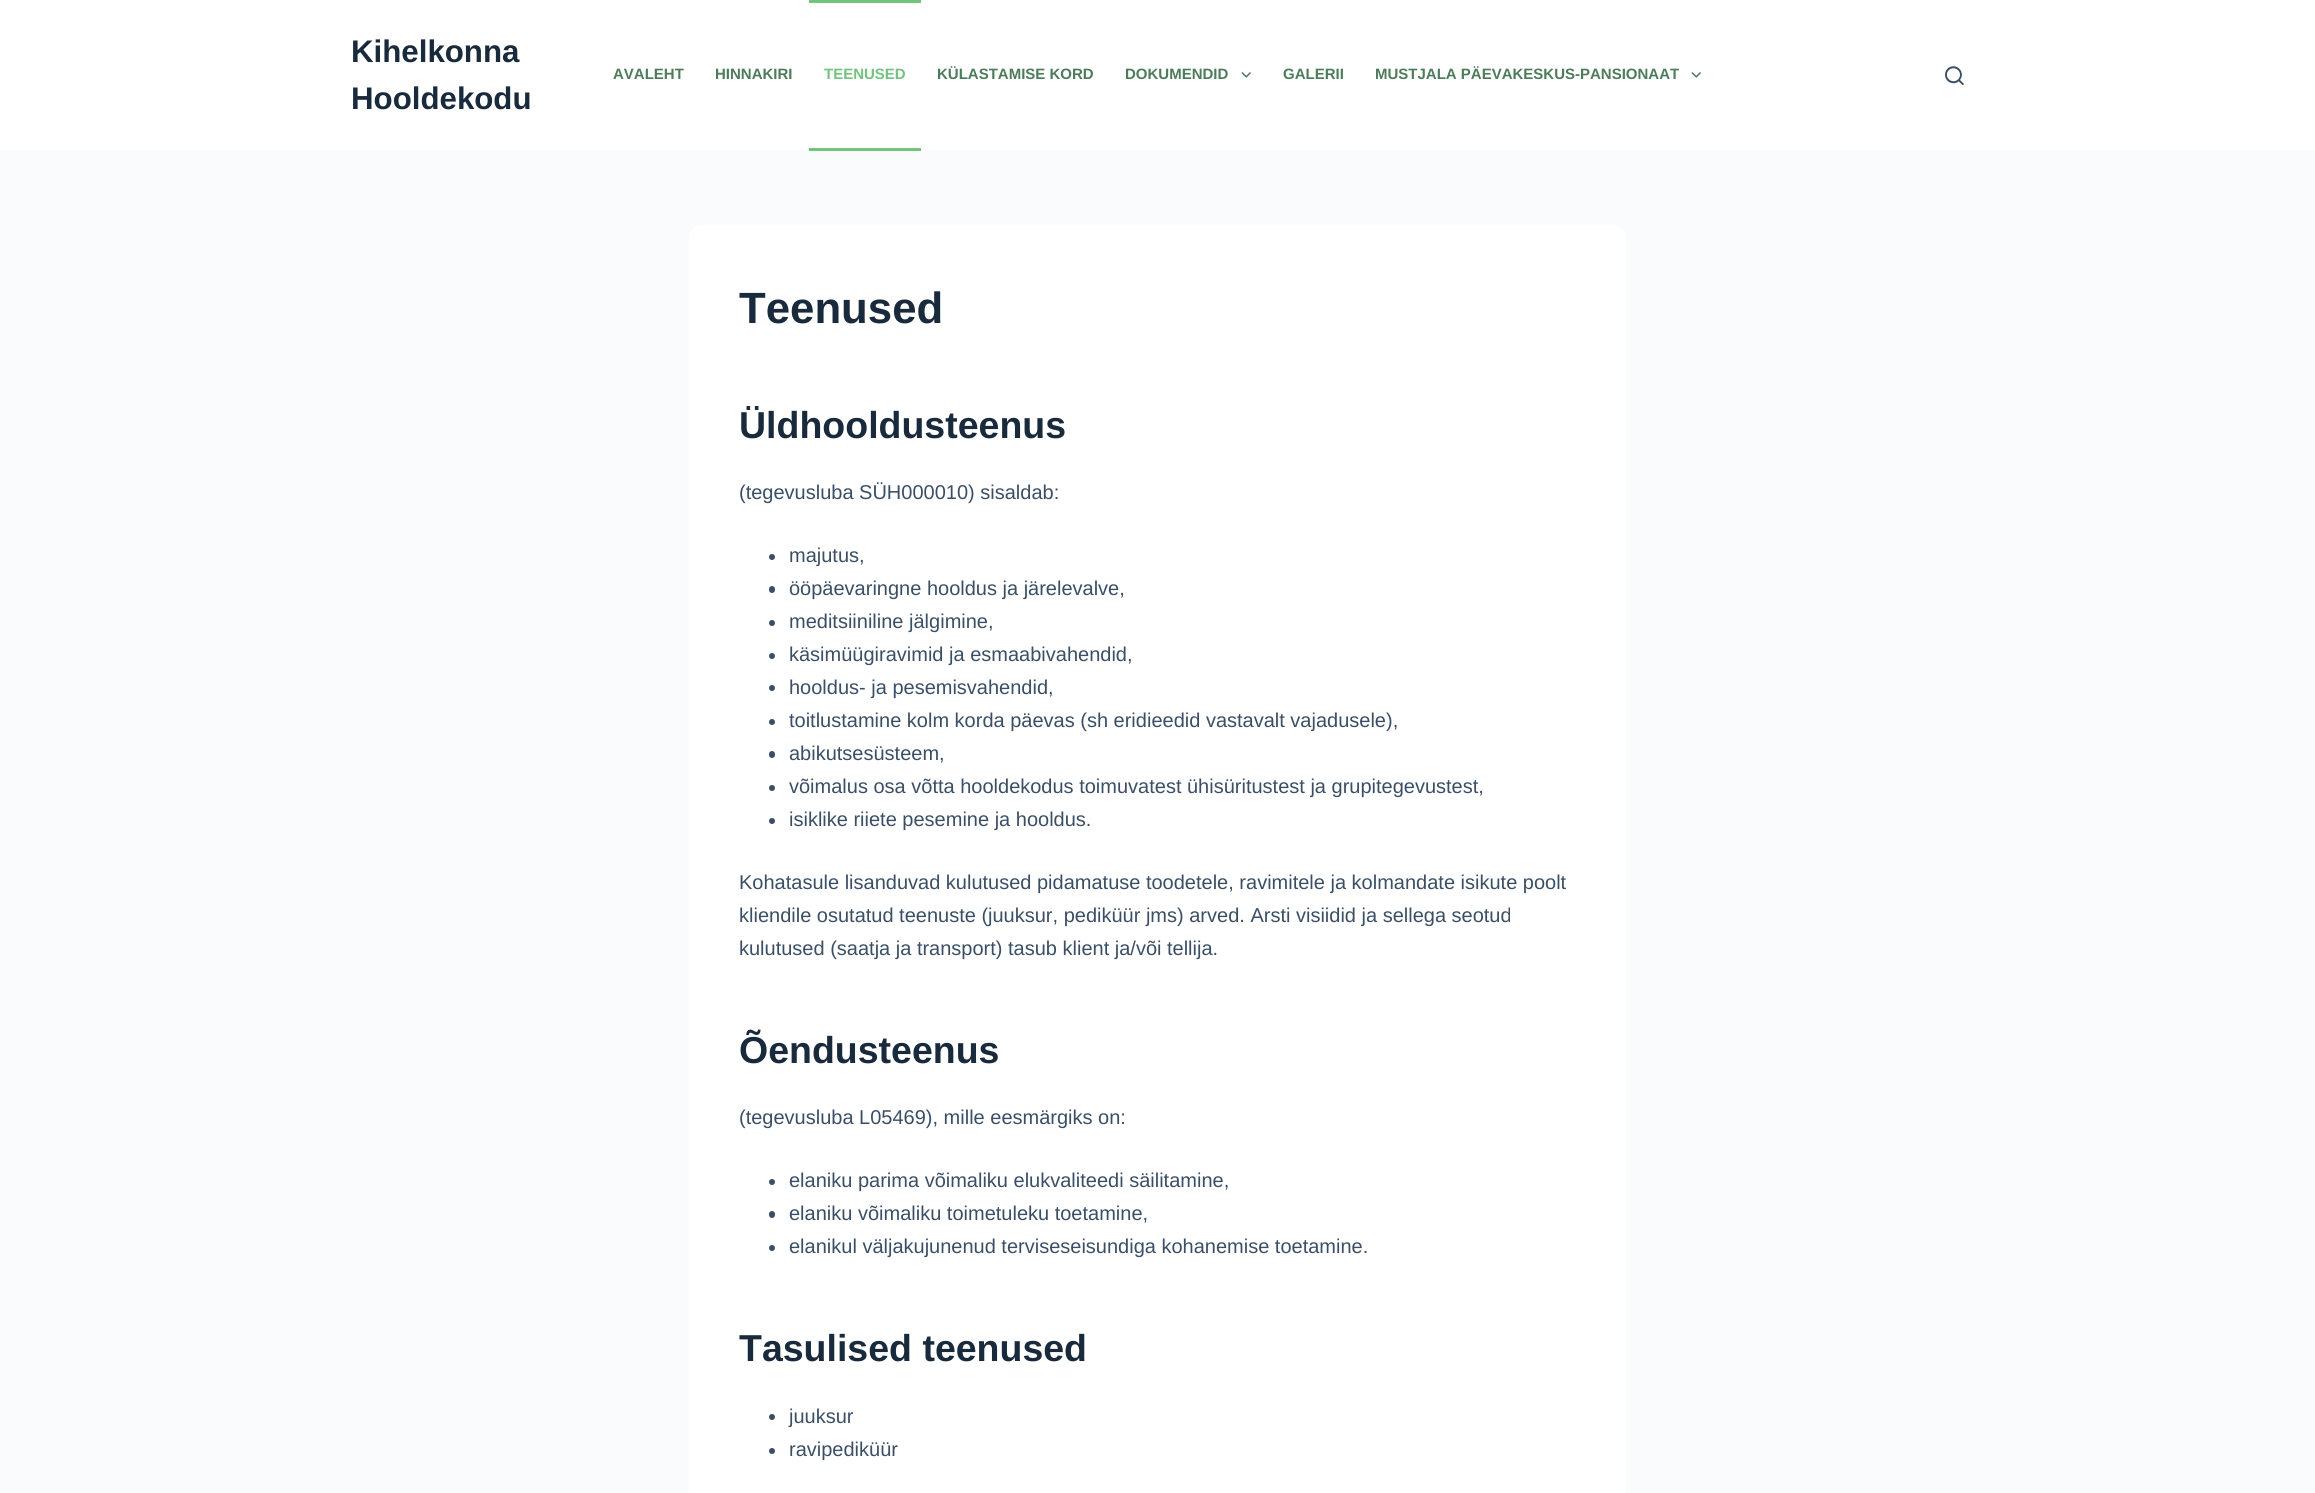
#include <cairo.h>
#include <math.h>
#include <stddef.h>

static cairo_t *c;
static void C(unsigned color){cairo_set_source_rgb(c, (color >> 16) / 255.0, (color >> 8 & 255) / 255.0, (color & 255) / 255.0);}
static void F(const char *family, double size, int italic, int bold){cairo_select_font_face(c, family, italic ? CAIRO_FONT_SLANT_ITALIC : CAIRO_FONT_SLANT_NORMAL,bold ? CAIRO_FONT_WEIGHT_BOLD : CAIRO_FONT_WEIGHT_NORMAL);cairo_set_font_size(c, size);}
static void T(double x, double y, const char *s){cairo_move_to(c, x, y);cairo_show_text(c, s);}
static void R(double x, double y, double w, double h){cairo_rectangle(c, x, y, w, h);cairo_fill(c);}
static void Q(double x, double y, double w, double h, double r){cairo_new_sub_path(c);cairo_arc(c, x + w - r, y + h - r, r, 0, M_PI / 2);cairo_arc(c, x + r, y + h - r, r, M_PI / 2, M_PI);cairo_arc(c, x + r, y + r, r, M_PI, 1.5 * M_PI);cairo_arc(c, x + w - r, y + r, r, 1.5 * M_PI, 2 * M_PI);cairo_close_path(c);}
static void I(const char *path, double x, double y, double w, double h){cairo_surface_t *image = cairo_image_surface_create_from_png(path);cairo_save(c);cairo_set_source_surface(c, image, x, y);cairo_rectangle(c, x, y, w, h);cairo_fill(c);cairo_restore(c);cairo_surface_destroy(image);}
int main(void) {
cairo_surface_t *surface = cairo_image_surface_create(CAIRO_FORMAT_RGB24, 2315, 1493);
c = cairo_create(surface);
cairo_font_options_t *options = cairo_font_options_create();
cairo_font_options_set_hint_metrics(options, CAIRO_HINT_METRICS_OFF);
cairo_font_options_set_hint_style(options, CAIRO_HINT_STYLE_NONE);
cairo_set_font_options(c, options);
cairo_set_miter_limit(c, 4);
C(0xfafbfc);
cairo_paint(c);
C(0xffffff);
R(0,0,2315,150);
F("Liberation Sans",31.25,0,1);
C(0x192a3d);
T(351,62,"Kihelkonna");
T(351,109,"Hooldekodu");
F("Liberation Sans",15,0,1);
C(0x4c7c59);
T(613,79,"AVALEHT");
T(715,79,"HINNAKIRI");
C(0x71c37d);
R(809,0,112,3);
T(824,79,"TEENUSED");
R(809,148,112,3);
C(0x4c7c59);
T(937,79,"KÜLASTAMISE KORD");
T(1125,79,"DOKUMENDID");
I("1.png",1241,72,10,6);
T(1283,79,"GALERII");
T(1375,79,"MUSTJALA PÄEVAKESKUS-PANSIONAAT");
I("1.png",1691,72,10,6);
I("2.png",1945,66,19,19);
C(0xffffff);
Q(689,225,937,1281,13);
cairo_fill(c);
F("Liberation Sans",43.75,0,1);
C(0x192a3d);
T(739,323,"Teenused");
F("Liberation Sans",37.5,0,1);
T(739,438,"Üldhooldusteenus");
F("Liberation Sans",20,0,0);
C(0x3a4f66);
T(739,499,"(tegevusluba SÜH000010) sisaldab:");
cairo_new_path(c);
cairo_arc(c,772,557,3,0,2 * M_PI);
cairo_fill(c);
T(789,562,"majutus,");
Q(769,586,6,7,3);
cairo_fill(c);
T(789,595,"ööpäevaringne hooldus ja järelevalve,");
cairo_new_path(c);
cairo_arc(c,772,623,3,0,2 * M_PI);
cairo_fill(c);
T(789,628,"meditsiiniline jälgimine,");
cairo_new_path(c);
cairo_arc(c,772,656,3,0,2 * M_PI);
cairo_fill(c);
T(789,661,"käsimüügiravimid ja esmaabivahendid,");
cairo_new_path(c);
cairo_arc(c,772,688,3,0,2 * M_PI);
cairo_fill(c);
T(789,694,"hooldus- ja pesemisvahendid,");
cairo_new_path(c);
cairo_arc(c,772,722,3,0,2 * M_PI);
cairo_fill(c);
T(789,727,"toitlustamine kolm korda päevas (sh eridieedid vastavalt vajadusele),");
Q(769,751,6,7,3);
cairo_fill(c);
T(789,760,"abikutsesüsteem,");
cairo_new_path(c);
cairo_arc(c,772,788,3,0,2 * M_PI);
cairo_fill(c);
T(789,793,"võimalus osa võtta hooldekodus toimuvatest ühisüritustest ja grupitegevustest,");
cairo_new_path(c);
cairo_arc(c,772,821,3,0,2 * M_PI);
cairo_fill(c);
T(789,826,"isiklike riiete pesemine ja hooldus.");
T(739,889,"Kohatasule lisanduvad kulutused pidamatuse toodetele, ravimitele ja kolmandate isikute poolt");
T(739,922,"kliendile osutatud teenuste (juuksur, pediküür jms) arved. Arsti visiidid ja sellega seotud");
T(739,955,"kulutused (saatja ja transport) tasub klient ja/või tellija.");
F("Liberation Sans",37.5,0,1);
C(0x192a3d);
T(739,1063,"Õendusteenus");
F("Liberation Sans",20,0,0);
C(0x3a4f66);
T(739,1124,"(tegevusluba L05469), mille eesmärgiks on:");
cairo_new_path(c);
cairo_arc(c,772,1182,3,0,2 * M_PI);
cairo_fill(c);
T(789,1187,"elaniku parima võimaliku elukvaliteedi säilitamine,");
Q(769,1211,6,7,3);
cairo_fill(c);
T(789,1220,"elaniku võimaliku toimetuleku toetamine,");
cairo_new_path(c);
cairo_arc(c,772,1248,3,0,2 * M_PI);
cairo_fill(c);
T(789,1253,"elanikul väljakujunenud terviseseisundiga kohanemise toetamine.");
F("Liberation Sans",37.5,0,1);
C(0x192a3d);
T(739,1361,"Tasulised teenused");
C(0x3a4f66);
cairo_new_path(c);
cairo_arc(c,772,1417,3,0,2 * M_PI);
cairo_fill(c);
F("Liberation Sans",20,0,0);
T(789,1423,"juuksur");
cairo_new_path(c);
cairo_arc(c,772,1451,3,0,2 * M_PI);
cairo_fill(c);
T(789,1456,"ravipediküür");
cairo_surface_write_to_png(surface, "o.png");
cairo_font_options_destroy(options);
cairo_destroy(c);
cairo_surface_destroy(surface);
return 0;
}
